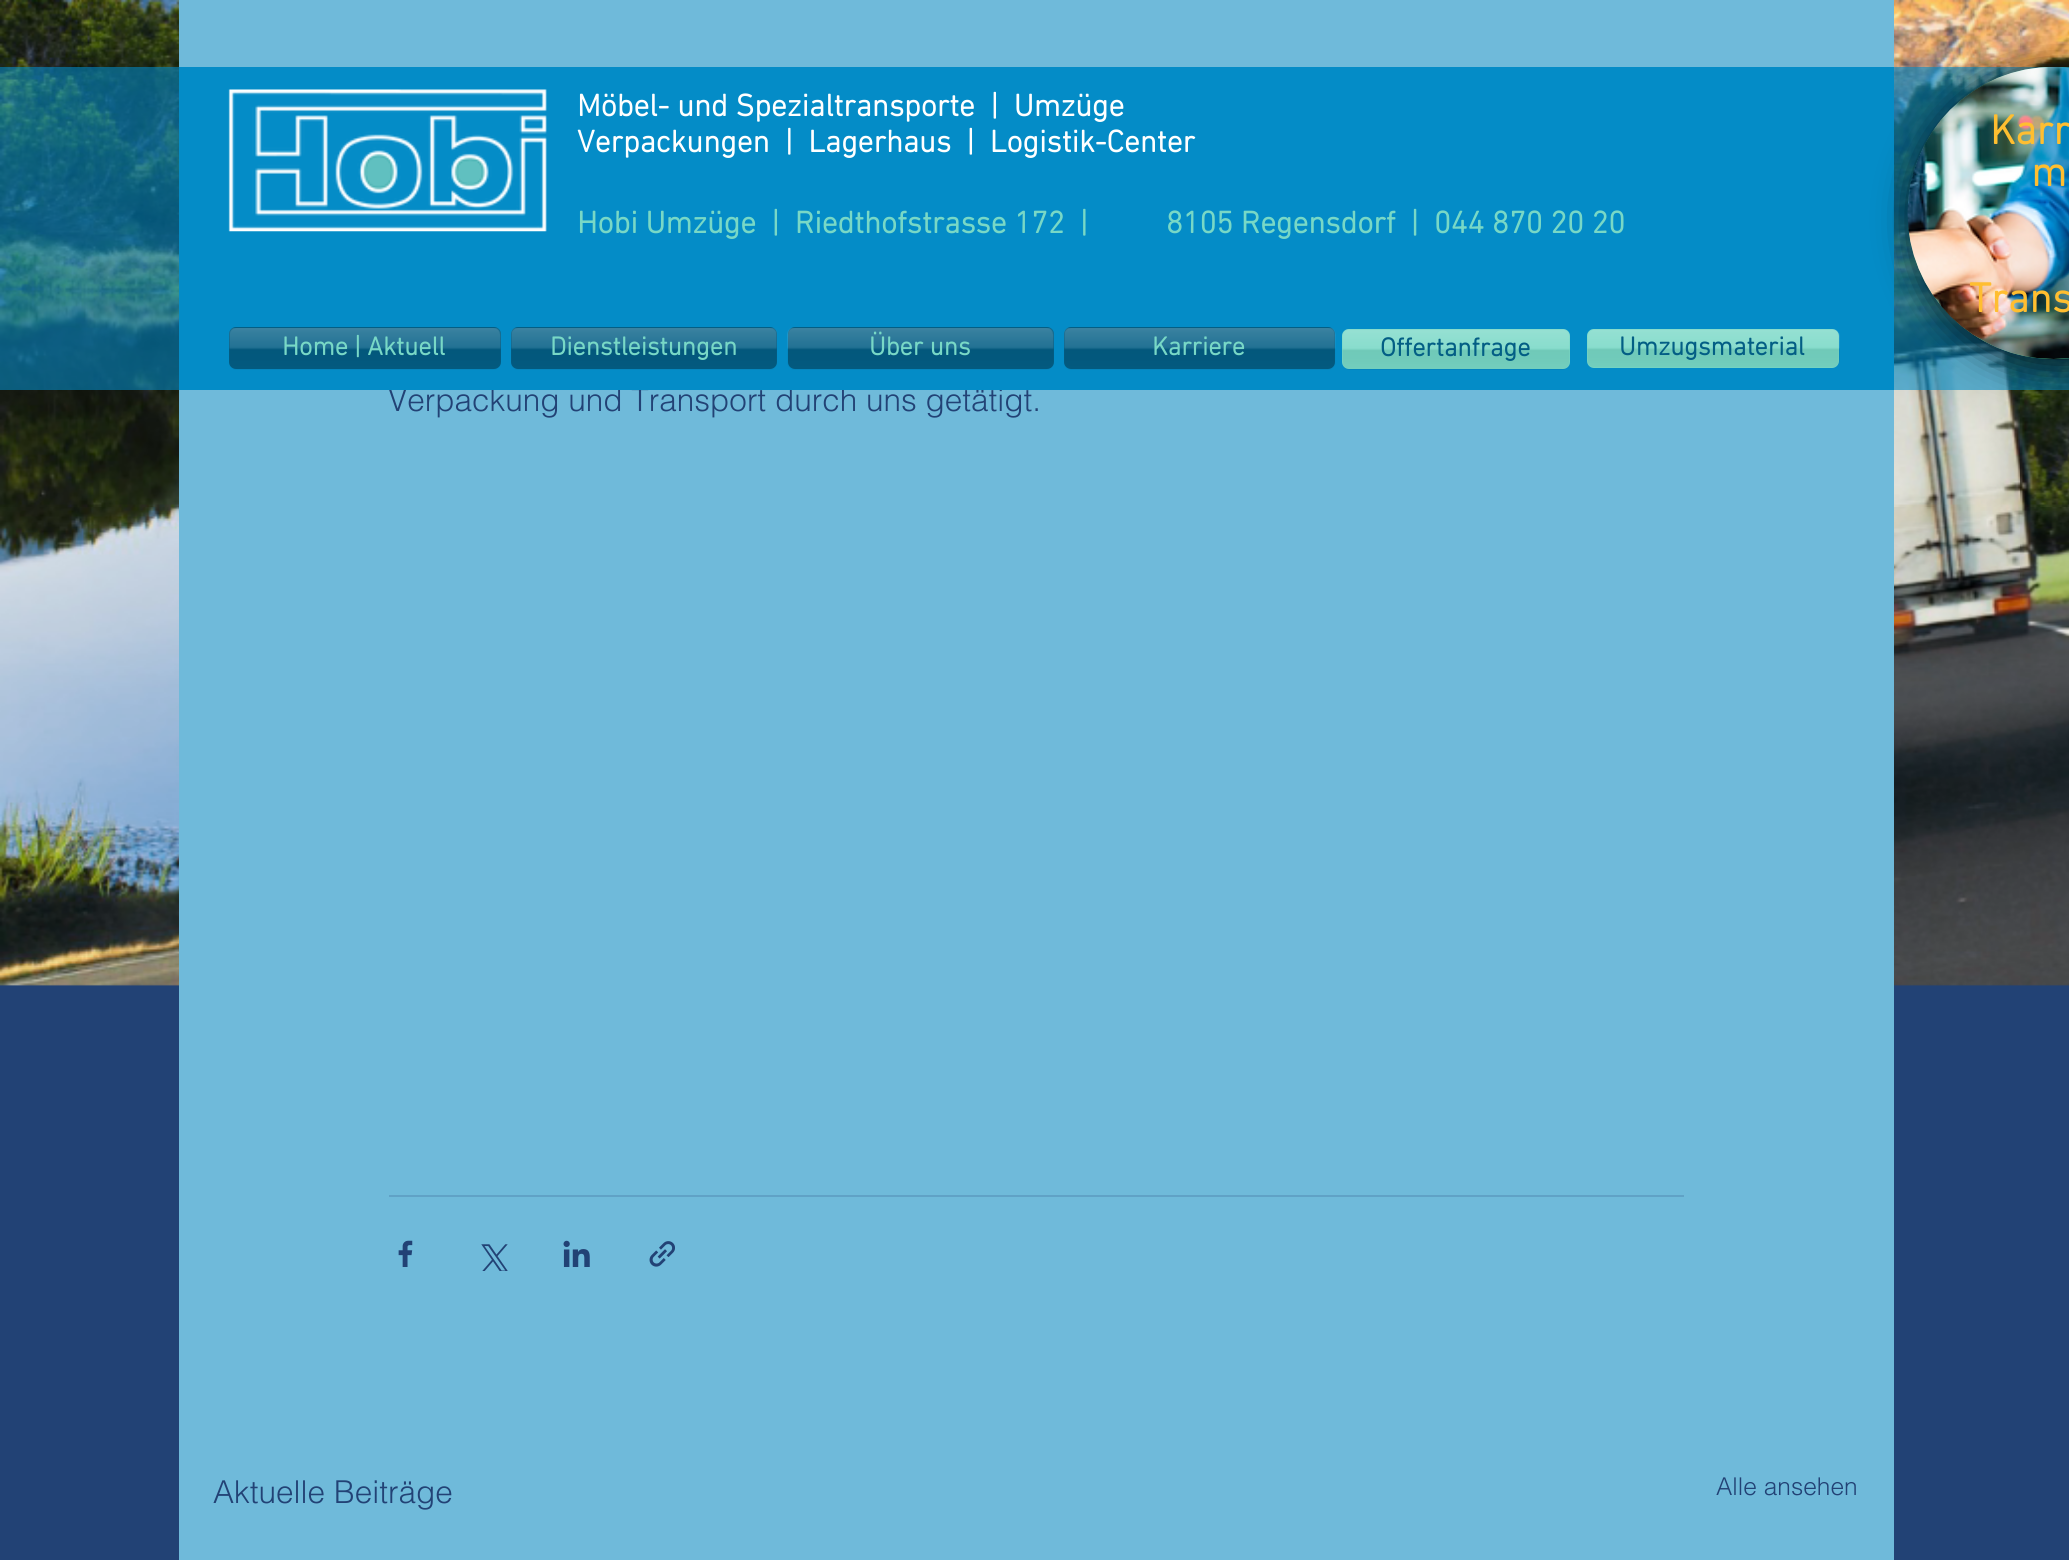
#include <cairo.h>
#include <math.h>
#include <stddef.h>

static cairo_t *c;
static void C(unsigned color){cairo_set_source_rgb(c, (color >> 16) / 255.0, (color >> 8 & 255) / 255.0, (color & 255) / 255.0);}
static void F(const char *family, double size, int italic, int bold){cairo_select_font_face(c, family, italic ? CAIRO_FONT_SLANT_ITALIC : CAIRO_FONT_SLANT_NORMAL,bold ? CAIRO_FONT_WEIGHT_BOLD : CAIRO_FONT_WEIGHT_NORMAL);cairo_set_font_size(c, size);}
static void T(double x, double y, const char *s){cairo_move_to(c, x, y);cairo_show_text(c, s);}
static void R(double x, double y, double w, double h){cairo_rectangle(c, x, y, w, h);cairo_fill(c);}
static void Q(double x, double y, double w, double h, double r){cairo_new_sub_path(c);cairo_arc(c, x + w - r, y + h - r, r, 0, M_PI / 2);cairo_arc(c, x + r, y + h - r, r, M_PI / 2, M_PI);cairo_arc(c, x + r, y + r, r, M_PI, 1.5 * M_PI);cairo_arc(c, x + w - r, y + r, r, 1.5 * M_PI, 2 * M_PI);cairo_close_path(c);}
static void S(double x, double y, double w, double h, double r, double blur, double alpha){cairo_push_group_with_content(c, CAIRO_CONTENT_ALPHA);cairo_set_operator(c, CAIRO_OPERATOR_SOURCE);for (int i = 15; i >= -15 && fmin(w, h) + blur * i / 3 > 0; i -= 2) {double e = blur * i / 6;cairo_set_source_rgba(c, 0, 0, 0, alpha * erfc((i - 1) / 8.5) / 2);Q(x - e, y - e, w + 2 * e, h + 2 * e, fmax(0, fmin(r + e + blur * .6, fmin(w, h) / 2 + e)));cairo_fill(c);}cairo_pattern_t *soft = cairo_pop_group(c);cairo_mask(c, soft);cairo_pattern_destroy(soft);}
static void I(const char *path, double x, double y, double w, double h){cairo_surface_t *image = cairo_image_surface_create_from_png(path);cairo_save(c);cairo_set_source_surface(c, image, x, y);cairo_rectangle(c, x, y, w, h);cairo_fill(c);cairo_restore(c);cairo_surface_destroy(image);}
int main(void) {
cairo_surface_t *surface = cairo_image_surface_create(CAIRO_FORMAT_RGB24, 2069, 1560);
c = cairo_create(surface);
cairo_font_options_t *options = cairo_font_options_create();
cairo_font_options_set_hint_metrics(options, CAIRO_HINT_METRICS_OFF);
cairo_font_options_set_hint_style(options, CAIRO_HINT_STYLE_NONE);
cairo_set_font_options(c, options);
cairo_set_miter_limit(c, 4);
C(0x224275);
cairo_paint(c);
I("1.png",0,0,2069,986);
C(0x6fbada);
R(179,0,1715,1560);
F("helvetica Light",31.5,0,0);
C(0x224275);
T(388,411,"Verpackung und Transport durch uns getätigt.");
cairo_set_source_rgba(c,0.016,0.549,0.78,0.59);
R(0,67,2069,323);
C(0x048cc7);
R(179,67,1715,323);
I("2.png",228,89,319,143);
F("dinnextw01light",31.5,0,1);
C(0xffffff);
T(577,116,"Möbel- und Spezialtransporte  |  Umzüge");
T(577,152,"Verpackungen  |  Lagerhaus  |  Logistik-Center");
C(0x78d8c6);
T(577,233,"Hobi Umzüge  |  Riedthofstrasse 172  |");
T(1166,233,"8105 Regensdorf  |  044 870 20 20");
C(0x035e85);
Q(229,327,272,42,7);
cairo_fill(c);
I("3.png",229,328,272,42);
F("dinnextw01light",26.25,0,1);
C(0x78d8c6);
T(282,355,"Home | Aktuell");
C(0x035e85);
Q(511,327,266,42,7);
cairo_fill(c);
I("4.png",511,328,266,42);
C(0x78d8c6);
T(550,355,"Dienstleistungen");
C(0x035e85);
Q(788,327,266,42,7);
cairo_fill(c);
I("5.png",787,328,267,42);
C(0x78d8c6);
T(869,355,"Über uns");
C(0x035e85);
Q(1064,327,271,42,7);
cairo_fill(c);
I("6.png",1064,328,272,42);
C(0x78d8c6);
T(1152,355,"Karriere");
Q(1342,329,228,40,7);
cairo_fill(c);
I("7.png",1342,329,228,41);
C(0x035e85);
T(1380,356,"Offertanfrage");
C(0x78d8c6);
Q(1587,329,252,39,7);
cairo_fill(c);
I("8.png",1587,329,253,39);
C(0x035e85);
T(1619,355,"Umzugsmaterial");
C(0x000000);
S(1913,70,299,299,149.5,17.5,.73);
C(0x5adba6);
cairo_arc(c,2054,213,146,0,2 * M_PI);
cairo_fill(c);
I("9.png",1907,67,162,292);
F("dinnextw01light",42,0,1);
C(0xffbe30);
T(1990,144,"Karr");
T(2031,186,"m");
T(1969,312,"Trans");
C(0x60a2c6);
R(389,1195,1295,2);
I("10.png",398,1240,15,27);
I("11.png",481,1244,27,27);
I("12.png",563,1240,27,27);
I("13.png",649,1241,26,26);
F("helvetica Light",31.5,0,0);
C(0x224275);
T(213,1503,"Aktuelle Beiträge");
F("helvetica Light",24.5,0,0);
T(1716,1495,"Alle ansehen");
cairo_surface_write_to_png(surface, "o.png");
cairo_font_options_destroy(options);
cairo_destroy(c);
cairo_surface_destroy(surface);
return 0;
}
